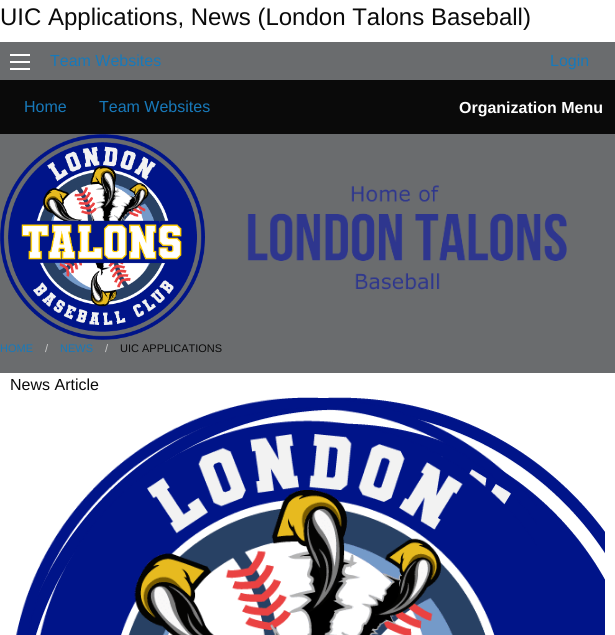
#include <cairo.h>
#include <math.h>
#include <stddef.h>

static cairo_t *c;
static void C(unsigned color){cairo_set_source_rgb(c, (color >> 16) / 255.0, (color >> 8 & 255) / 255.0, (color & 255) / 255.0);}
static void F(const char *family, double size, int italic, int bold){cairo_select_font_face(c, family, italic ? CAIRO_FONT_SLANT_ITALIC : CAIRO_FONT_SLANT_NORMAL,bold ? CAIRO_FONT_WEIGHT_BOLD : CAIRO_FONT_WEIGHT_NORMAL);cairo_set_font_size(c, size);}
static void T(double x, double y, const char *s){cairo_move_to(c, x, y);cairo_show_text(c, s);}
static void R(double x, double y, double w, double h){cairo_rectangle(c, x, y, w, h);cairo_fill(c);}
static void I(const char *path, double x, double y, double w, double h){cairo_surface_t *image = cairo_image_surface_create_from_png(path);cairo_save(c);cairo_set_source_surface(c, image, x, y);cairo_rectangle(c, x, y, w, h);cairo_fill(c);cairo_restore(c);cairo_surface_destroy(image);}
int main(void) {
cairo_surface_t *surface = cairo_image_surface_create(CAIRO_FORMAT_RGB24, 615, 635);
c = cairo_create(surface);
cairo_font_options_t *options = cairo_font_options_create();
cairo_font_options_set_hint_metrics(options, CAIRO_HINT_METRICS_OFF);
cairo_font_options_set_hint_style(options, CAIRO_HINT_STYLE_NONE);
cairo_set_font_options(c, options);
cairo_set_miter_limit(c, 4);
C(0xffffff);
cairo_paint(c);
F("Liberation Sans",24,0,0);
C(0x0a0a0a);
T(0,25,"UIC Applications, News (London Talons Baseball)");
C(0x6a6c6e);
R(0,42,615,331);
C(0xfefefe);
R(10,68,20,2);
R(10,61,20,2);
R(10,54,20,2);
F("Liberation Sans",16,0,0);
C(0x1779ba);
T(50,66,"Team Websites");
T(550,66,"Login");
C(0x0a0a0a);
R(0,80,615,54);
C(0x1779ba);
T(24,112,"Home");
T(99,112,"Team Websites");
F("Liberation Sans",16,0,1);
C(0xfefefe);
T(459,113,"Organization Menu");
I("1.png",0,134,205,206);
I("2.png",247,185,320,105);
F("Liberation Sans",11,0,0);
C(0x1779ba);
T(0,352,"HOME");
C(0xcacaca);
T(45,352,"/");
C(0x1779ba);
T(60,352,"NEWS");
C(0xcacaca);
T(105,352,"/");
C(0x0a0a0a);
T(120,352,"UIC APPLICATIONS");
F("Liberation Sans",16,0,0);
T(10,390,"News Article");
I("3.png",27,397,578,238);
I("4.png",16,397,521,238);
cairo_surface_write_to_png(surface, "o.png");
cairo_font_options_destroy(options);
cairo_destroy(c);
cairo_surface_destroy(surface);
return 0;
}
